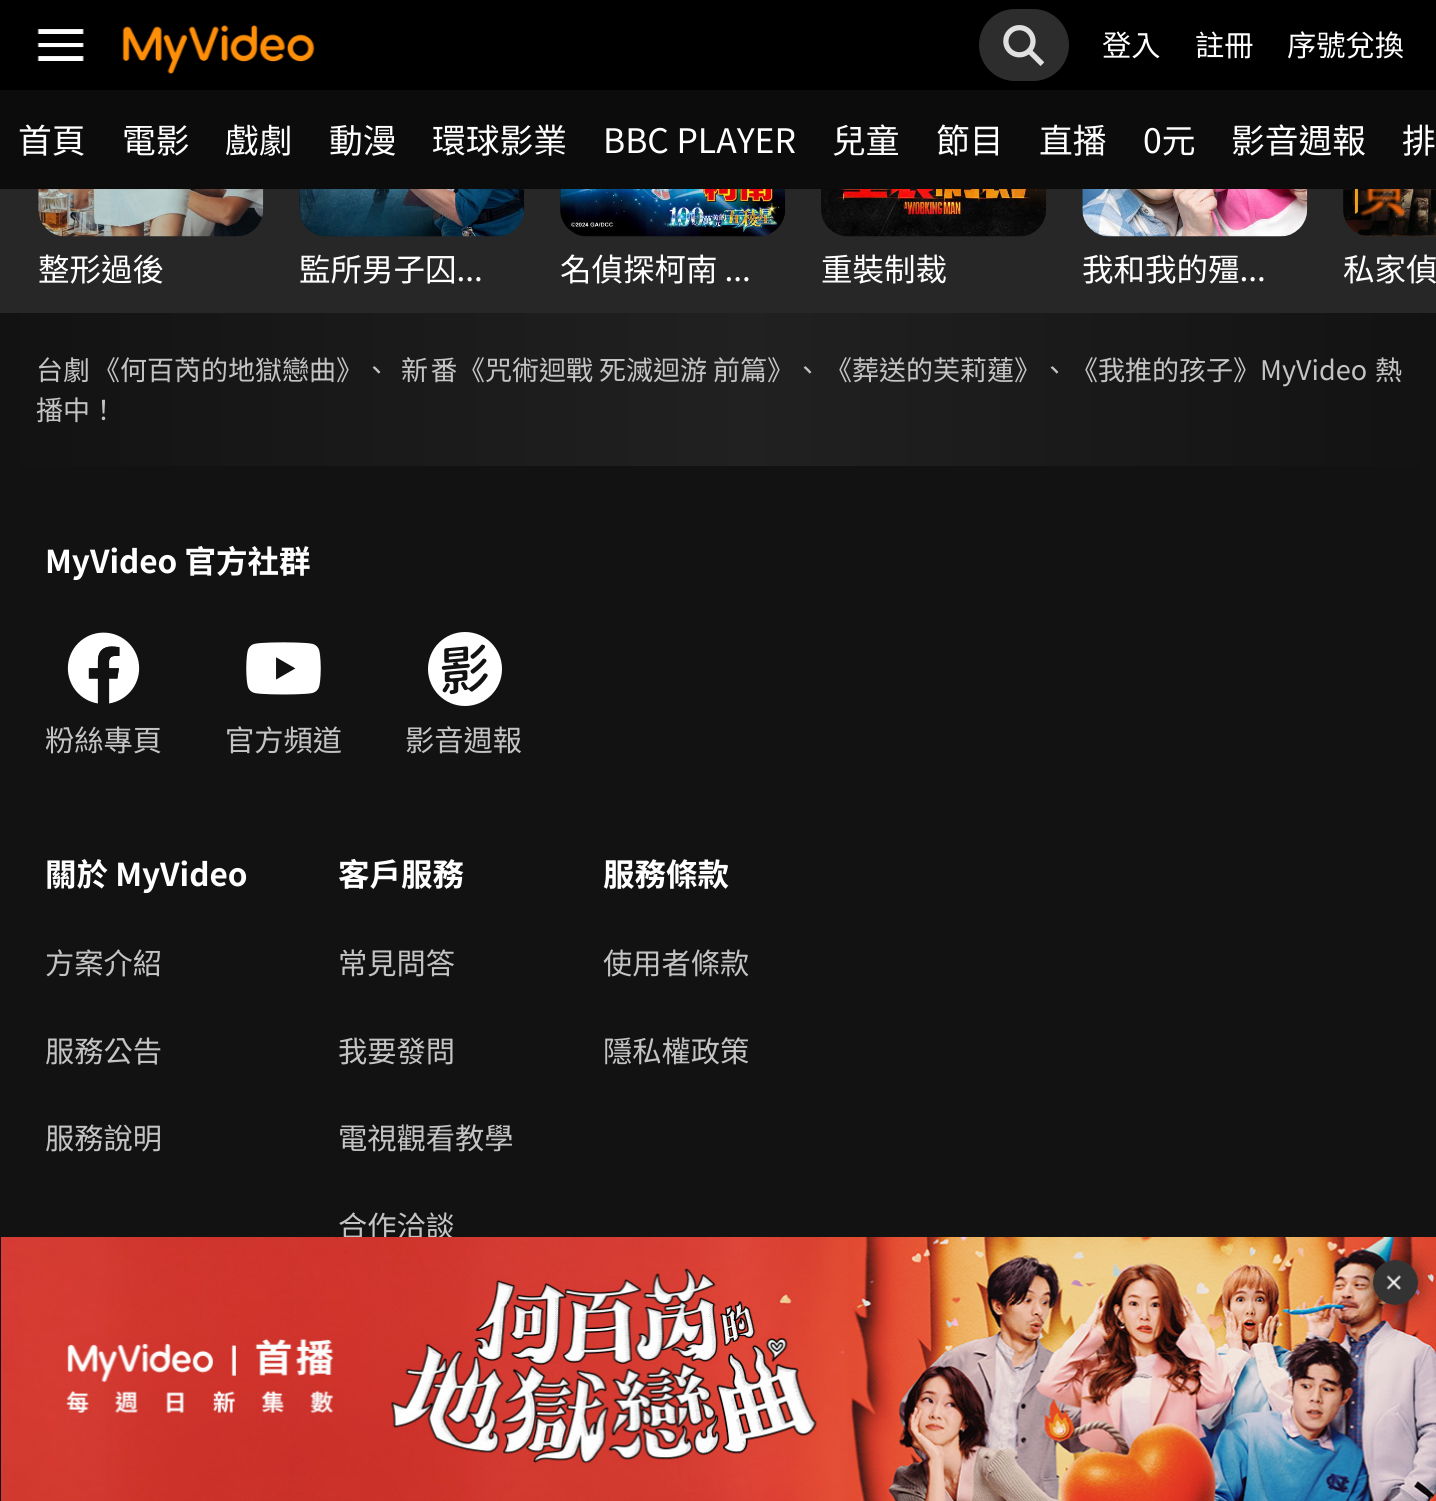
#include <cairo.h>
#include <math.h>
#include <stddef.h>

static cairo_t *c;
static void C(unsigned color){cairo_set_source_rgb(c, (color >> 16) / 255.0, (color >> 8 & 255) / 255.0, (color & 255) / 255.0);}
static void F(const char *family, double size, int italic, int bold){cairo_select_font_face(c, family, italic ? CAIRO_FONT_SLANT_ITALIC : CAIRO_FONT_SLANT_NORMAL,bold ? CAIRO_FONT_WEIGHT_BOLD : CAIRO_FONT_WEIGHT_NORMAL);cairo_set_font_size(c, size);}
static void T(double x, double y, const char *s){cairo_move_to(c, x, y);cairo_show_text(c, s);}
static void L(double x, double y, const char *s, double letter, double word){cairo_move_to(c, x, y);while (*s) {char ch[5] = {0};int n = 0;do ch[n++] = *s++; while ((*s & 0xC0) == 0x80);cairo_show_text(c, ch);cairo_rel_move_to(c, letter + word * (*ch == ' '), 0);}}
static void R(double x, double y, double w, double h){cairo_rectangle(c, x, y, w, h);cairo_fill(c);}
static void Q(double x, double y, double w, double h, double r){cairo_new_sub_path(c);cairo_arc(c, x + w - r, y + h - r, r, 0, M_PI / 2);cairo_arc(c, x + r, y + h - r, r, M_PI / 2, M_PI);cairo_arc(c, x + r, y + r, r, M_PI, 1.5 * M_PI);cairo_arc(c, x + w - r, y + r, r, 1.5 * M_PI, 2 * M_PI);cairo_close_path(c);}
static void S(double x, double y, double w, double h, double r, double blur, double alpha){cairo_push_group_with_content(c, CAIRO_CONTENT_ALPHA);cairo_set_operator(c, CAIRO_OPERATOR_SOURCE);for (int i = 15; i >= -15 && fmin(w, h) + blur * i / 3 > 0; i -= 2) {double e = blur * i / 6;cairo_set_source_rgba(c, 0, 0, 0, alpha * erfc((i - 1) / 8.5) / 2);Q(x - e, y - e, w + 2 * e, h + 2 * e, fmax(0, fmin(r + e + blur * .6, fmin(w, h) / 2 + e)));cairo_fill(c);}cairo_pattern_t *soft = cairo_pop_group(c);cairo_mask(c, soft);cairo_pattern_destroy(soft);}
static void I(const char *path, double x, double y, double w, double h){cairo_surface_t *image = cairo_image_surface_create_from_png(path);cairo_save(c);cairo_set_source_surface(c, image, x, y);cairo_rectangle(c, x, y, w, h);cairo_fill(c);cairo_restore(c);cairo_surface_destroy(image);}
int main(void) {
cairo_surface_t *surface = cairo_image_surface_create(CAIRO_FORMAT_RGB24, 1436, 1501);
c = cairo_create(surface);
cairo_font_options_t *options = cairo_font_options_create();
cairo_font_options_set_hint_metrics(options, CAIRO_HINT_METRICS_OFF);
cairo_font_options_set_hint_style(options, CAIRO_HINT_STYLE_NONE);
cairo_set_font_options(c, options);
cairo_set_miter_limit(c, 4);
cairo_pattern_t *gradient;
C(0x272727);
cairo_paint(c);
C(0x121212);
Q(38,-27,225,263,27);
cairo_fill(c);
Q(299,-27,225,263,27);
cairo_fill(c);
Q(560,-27,225,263,27);
cairo_fill(c);
Q(821,-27,225,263,27);
cairo_fill(c);
Q(1082,-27,225,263,27);
cairo_fill(c);
cairo_new_path(c);
cairo_move_to(c,1370,-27);
cairo_line_to(c,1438,-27);
cairo_line_to(c,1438,236);
cairo_line_to(c,1370,236);
cairo_curve_to(c,1355,236,1343,224,1343,209);
cairo_line_to(c,1343,0);
cairo_curve_to(c,1343,-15,1355,-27,1370,-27);
cairo_close_path(c);
cairo_fill(c);
C(0x000000);
R(0,0,1436,90);
I("1.png",37,29,47,32);
I("2.png",122,25,193,49);
C(0x2d2d2d);
Q(979,9,90,72,36);
cairo_fill(c);
I("3.png",1003,25,42,41);
F("Noto Sans TC",29.25,0,0);
C(0xffffff);
T(1102,56,"登入");
T(1195,56,"註冊");
T(1287,56,"序號兌換");
C(0x0c0c0c);
R(0,90,1436,99);
F("Noto Sans TC",33.75,0,0);
C(0xffffff);
T(18,153,"首頁");
T(122,153,"電影");
T(225,153,"戲劇");
T(329,153,"動漫");
T(432,153,"環球影業");
T(603,153,"BBC PLAYER");
T(832,153,"兒童");
T(936,153,"節目");
T(1039,153,"直播");
T(1143,153,"0元");
T(1231,153,"影音週報");
T(1402,153,"排");
C(0x121212);
R(0,466,1436,1035);
F("Noto Sans TC",29.25,0,0);
C(0xc4c4c4);
T(338,1237,"合作洽談");
I("5.png",1,1237,1435,264);
cairo_save(c);
cairo_set_fill_rule(c,CAIRO_FILL_RULE_EVEN_ODD);
cairo_new_path(c);
cairo_move_to(c,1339,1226);
cairo_line_to(c,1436,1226);
cairo_line_to(c,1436,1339);
cairo_line_to(c,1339,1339);
cairo_close_path(c);
cairo_move_to(c,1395.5,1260);
cairo_curve_to(c,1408,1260,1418,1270,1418,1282.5);
cairo_curve_to(c,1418,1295,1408,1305,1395.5,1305);
cairo_curve_to(c,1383,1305,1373,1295,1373,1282.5);
cairo_curve_to(c,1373,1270,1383,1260,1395.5,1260);
cairo_close_path(c);
cairo_clip(c);
C(0x000000);
S(1373,1260,45,45,22.5,11,.5);
cairo_restore(c);
C(0x333333);
cairo_arc(c,1395.5,1282.5,22.5,0,2 * M_PI);
cairo_fill(c);
I("4.png",1386,1274,16,16);
I("6.png",38,189,226,48);
F("Noto Sans TC",31.5,0,0);
C(0xffffff);
T(38,281,"整形過後");
I("7.png",299,189,226,48);
T(299,281,"監所男子囚...");
I("8.png",560,189,226,48);
T(560,281,"名偵探柯南 ...");
I("9.png",821,189,226,48);
T(821,281,"重裝制裁");
I("10.png",1082,189,226,48);
T(1082,281,"我和我的殭...");
I("11.png",1343,189,93,48);
T(1343,281,"私家偵");
gradient = cairo_pattern_create_linear(0,389,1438,389);
cairo_pattern_add_color_stop_rgba(gradient,0,0.071,0.071,0.071,1);
cairo_pattern_add_color_stop_rgba(gradient,.52,0.129,0.129,0.129,1);
cairo_pattern_add_color_stop_rgba(gradient,1,0.071,0.071,0.071,1);
cairo_set_source(c,gradient);
cairo_pattern_destroy(gradient);
R(0,313,1436,153);
F("Noto Sans TC",27,0,0);
C(0xc4c4c4);
T(36,380,"台劇");
T(93,380,"《何百芮的地獄戀曲》");
L(363,380,"、 新番",2.5,0);
T(458,380,"《咒術迴戰 死滅迴游 前篇》、");
T(825,380,"《葬送的芙莉蓮》、");
T(1071,380,"《我推的孩子》");
L(1260,380,"MyVideo 熱",0,2);
T(36,420,"播中！");
F("Noto Sans TC",31.5,0,1);
C(0xffffff);
T(45,573,"MyVideo 官方社群");
I("12.png",67,632,73,72);
F("Noto Sans TC",29.25,0,0);
C(0xc4c4c4);
T(45,751,"粉絲專頁");
I("13.png",246,642,75,53);
T(225,751,"官方頻道");
I("14.png",428,632,74,74);
T(405,751,"影音週報");
F("Noto Sans TC",31.5,0,1);
C(0xffffff);
T(45,886,"關於 MyVideo");
F("Noto Sans TC",29.25,0,0);
C(0xc4c4c4);
T(45,974,"方案介紹");
T(45,1062,"服務公告");
T(45,1149,"服務說明");
F("Noto Sans TC",31.5,0,1);
C(0xffffff);
T(338,886,"客戶服務");
F("Noto Sans TC",29.25,0,0);
C(0xc4c4c4);
T(338,974,"常見問答");
T(338,1062,"我要發問");
T(338,1149,"電視觀看教學");
F("Noto Sans TC",31.5,0,1);
C(0xffffff);
T(603,886,"服務條款");
F("Noto Sans TC",29.25,0,0);
C(0xc4c4c4);
T(603,974,"使用者條款");
T(603,1062,"隱私權政策");
cairo_surface_write_to_png(surface, "o.png");
cairo_font_options_destroy(options);
cairo_destroy(c);
cairo_surface_destroy(surface);
return 0;
}
